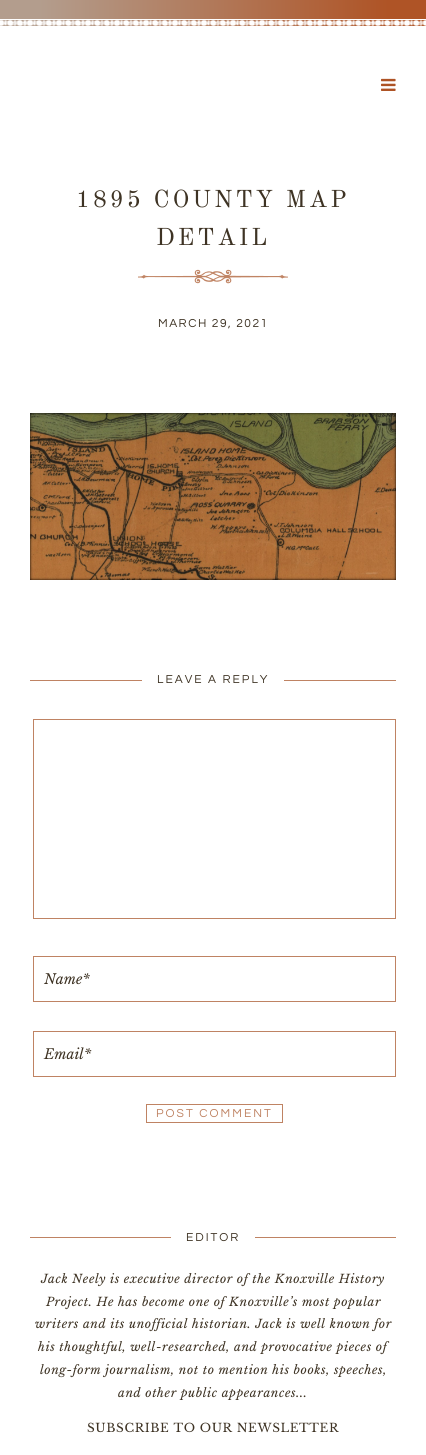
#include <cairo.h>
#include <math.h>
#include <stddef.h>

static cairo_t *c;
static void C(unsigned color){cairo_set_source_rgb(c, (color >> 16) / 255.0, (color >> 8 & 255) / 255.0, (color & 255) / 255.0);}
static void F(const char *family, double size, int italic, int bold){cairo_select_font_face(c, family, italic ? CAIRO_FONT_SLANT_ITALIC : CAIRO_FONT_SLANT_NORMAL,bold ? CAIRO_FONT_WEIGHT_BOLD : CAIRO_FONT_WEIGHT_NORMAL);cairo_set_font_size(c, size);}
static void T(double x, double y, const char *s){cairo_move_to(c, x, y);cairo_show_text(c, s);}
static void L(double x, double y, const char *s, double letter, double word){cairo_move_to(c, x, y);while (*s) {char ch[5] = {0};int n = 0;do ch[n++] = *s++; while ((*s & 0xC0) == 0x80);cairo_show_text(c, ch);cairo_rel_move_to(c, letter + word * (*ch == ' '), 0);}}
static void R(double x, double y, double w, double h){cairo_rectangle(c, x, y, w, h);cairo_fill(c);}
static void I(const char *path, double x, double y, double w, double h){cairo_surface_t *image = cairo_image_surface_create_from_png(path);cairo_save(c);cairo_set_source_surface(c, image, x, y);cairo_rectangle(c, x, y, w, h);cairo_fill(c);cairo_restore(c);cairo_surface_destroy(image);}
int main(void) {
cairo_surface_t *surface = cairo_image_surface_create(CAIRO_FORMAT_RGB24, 426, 1455);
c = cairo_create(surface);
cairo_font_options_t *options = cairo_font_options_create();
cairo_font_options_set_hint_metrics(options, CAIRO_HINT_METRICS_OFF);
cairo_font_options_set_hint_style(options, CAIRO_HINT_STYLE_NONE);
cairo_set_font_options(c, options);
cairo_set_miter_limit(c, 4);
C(0xffffff);
cairo_paint(c);
I("1.png",0,0,426,26);
I("2.png",381,78,15,13);
F("Old Standard TT",24,0,0);
C(0x3e3324);
L(76,207,"1895 COUNTY MAP",3,0);
L(156,245,"DETAIL",3,0);
I("3.png",138,269,150,15);
F("Questrial",12,0,0);
L(158,327,"MARCH 29, 2021",1.5,0);
I("4.png",30,413,366,167);
C(0xbf8363);
R(30,680,366,1);
C(0xffffff);
R(142,680,142,1);
C(0x3e3324);
L(157,683,"LEAVE A REPLY",2,0);
cairo_rectangle(c,33.5,719.5,362,199);
C(0xbf8363);
cairo_set_line_width(c,1);
cairo_stroke(c);
cairo_rectangle(c,33.5,956.5,362,45);
cairo_stroke(c);
F("Libre Baskerville",14,1,0);
C(0x3e3324);
T(44,984,"Name*");
cairo_rectangle(c,33.5,1031.5,362,45);
C(0xbf8363);
cairo_stroke(c);
C(0x3e3324);
T(44,1059,"Email*");
cairo_rectangle(c,146.5,1104.5,136,18);
C(0xbf8363);
cairo_stroke(c);
F("Questrial",12,0,0);
L(156,1117,"POST COMMENT",2,0);
R(30,1237,366,1);
C(0xffffff);
R(171,1237,84,1);
C(0x3e3324);
L(186,1241,"EDITOR",2,0);
F("Libre Baskerville",12,1,0);
L(41,1283,"Jack Neely is executive director of the Knoxville History",.6,0);
L(46,1306,"Project. He has become one of Knoxville’s most popular",.6,0);
L(35,1328,"writers and its unofficial historian. Jack is well known for",.6,0);
L(38,1351,"his thoughtful, well-researched, and provocative pieces of",.6,0);
L(40,1374,"long-form journalism, not to mention his books, speeches,",.6,0);
L(118,1397,"and other public appearances...",.6,0);
F("Libre Baskerville",12,0,0);
L(87,1432,"SUBSCRIBE TO OUR NEWSLETTER",.6,0);
cairo_surface_write_to_png(surface, "o.png");
cairo_font_options_destroy(options);
cairo_destroy(c);
cairo_surface_destroy(surface);
return 0;
}
